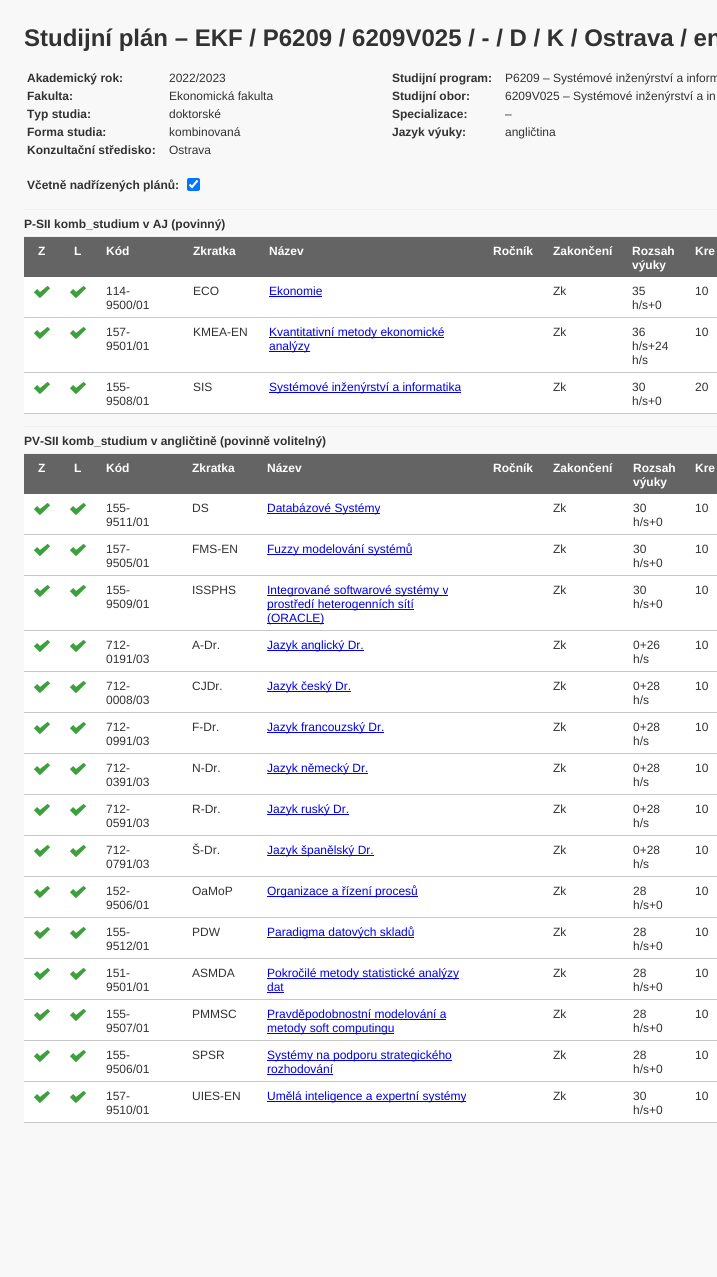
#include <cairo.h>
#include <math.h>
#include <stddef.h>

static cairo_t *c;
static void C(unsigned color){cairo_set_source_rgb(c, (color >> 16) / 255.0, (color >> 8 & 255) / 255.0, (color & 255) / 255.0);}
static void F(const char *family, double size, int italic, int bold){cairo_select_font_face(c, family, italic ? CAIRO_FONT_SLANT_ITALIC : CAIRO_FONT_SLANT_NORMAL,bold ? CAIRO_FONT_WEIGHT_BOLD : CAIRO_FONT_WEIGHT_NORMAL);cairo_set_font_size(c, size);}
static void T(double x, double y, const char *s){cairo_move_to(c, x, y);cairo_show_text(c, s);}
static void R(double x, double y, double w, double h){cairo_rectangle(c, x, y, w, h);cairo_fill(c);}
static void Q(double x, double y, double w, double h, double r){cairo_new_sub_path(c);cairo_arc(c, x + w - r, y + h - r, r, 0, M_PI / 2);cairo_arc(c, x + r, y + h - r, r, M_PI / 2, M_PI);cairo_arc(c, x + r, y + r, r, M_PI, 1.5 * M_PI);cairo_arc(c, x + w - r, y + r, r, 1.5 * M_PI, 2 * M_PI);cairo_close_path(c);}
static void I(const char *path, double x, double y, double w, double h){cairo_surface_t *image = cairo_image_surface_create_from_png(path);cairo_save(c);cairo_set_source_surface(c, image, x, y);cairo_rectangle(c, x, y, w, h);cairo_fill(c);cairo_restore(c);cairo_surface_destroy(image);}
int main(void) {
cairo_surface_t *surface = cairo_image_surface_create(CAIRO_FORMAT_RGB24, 717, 1277);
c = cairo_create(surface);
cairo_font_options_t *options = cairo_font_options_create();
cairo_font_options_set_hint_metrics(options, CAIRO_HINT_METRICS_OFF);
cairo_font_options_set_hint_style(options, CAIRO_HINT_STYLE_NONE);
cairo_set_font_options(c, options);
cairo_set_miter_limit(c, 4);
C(0xf8f8f8);
cairo_paint(c);
F("Liberation Sans",24,0,1);
C(0x323232);
T(24,46,"Studijní plán – EKF / P6209 / 6209V025 / - / D / K / Ostrava / en");
F("Liberation Sans",12,0,1);
T(27,82,"Akademický rok:");
F("Liberation Sans",12,0,0);
T(169,82,"2022/2023");
F("Liberation Sans",12,0,1);
T(392,82,"Studijní program:");
F("Liberation Sans",12,0,0);
T(505,82,"P6209 – Systémové inženýrství a inform");
F("Liberation Sans",12,0,1);
T(27,100,"Fakulta:");
F("Liberation Sans",12,0,0);
T(169,100,"Ekonomická fakulta");
F("Liberation Sans",12,0,1);
T(392,100,"Studijní obor:");
F("Liberation Sans",12,0,0);
T(505,100,"6209V025 – Systémové inženýrství a in");
F("Liberation Sans",12,0,1);
T(27,118,"Typ studia:");
F("Liberation Sans",12,0,0);
T(169,118,"doktorské");
F("Liberation Sans",12,0,1);
T(392,118,"Specializace:");
F("Liberation Sans",12,0,0);
T(505,118,"–");
F("Liberation Sans",12,0,1);
T(27,136,"Forma studia:");
F("Liberation Sans",12,0,0);
T(169,136,"kombinovaná");
F("Liberation Sans",12,0,1);
T(392,136,"Jazyk výuky:");
F("Liberation Sans",12,0,0);
T(505,136,"angličtina");
F("Liberation Sans",12,0,1);
T(27,154,"Konzultační středisko:");
F("Liberation Sans",12,0,0);
T(169,154,"Ostrava");
F("Liberation Sans",12,0,1);
T(27,189,"Včetně nadřízených plánů:");
C(0x0075ff);
Q(187,178,13,13,2);
cairo_fill(c);
cairo_new_path(c);
cairo_move_to(c,189.5,184.5);
cairo_line_to(c,192,187);
cairo_line_to(c,197.5,180.5);
C(0xffffff);
cairo_set_line_width(c,2.1);
cairo_stroke(c);
C(0xf0f0f0);
R(24,209,693,1);
C(0x323232);
T(24,228,"P-SII komb_studium v AJ (povinný)");
C(0xf0f0f0);
R(24,236,693,1);
C(0x646464);
R(24,237,693,40);
C(0xffffff);
T(38,255,"Z");
T(74,255,"L");
T(106,255,"Kód");
T(193,255,"Zkratka");
T(269,255,"Název");
T(493,255,"Ročník");
T(553,255,"Zakončení");
T(632,255,"Rozsah");
T(632,269,"výuky");
T(695,255,"Kre");
R(24,277,693,40);
I("1.png",34,286,16,12);
I("1.png",70,286,16,12);
F("Liberation Sans",12,0,0);
C(0x323232);
T(106,295,"114-");
T(106,309,"9500/01");
T(193,295,"ECO");
C(0x0000ee);
T(269,295,"Ekonomie");
R(269,296,53,1);
C(0x323232);
T(553,295,"Zk");
T(632,295,"35");
T(632,309,"h/s+0");
C(0xc8c8c8);
R(24,317,693,1);
C(0x323232);
T(695,295,"10");
C(0xffffff);
R(24,318,693,54);
I("1.png",34,327,16,12);
I("1.png",70,327,16,12);
C(0x323232);
T(106,336,"157-");
T(106,350,"9501/01");
T(193,336,"KMEA-EN");
C(0x0000ee);
R(269,337,175,1);
T(269,336,"Kvantitativní metody ekonomické");
R(269,351,41,1);
T(269,350,"analýzy");
C(0x323232);
T(553,336,"Zk");
T(632,336,"36");
T(632,350,"h/s+24");
T(632,364,"h/s");
C(0xc8c8c8);
R(24,372,693,1);
C(0x323232);
T(695,336,"10");
C(0xffffff);
R(24,373,693,40);
I("1.png",34,382,16,12);
I("1.png",70,382,16,12);
C(0x323232);
T(106,391,"155-");
T(106,405,"9508/01");
T(193,391,"SIS");
C(0x0000ee);
R(269,392,192,1);
T(269,391,"Systémové inženýrství a informatika");
C(0x323232);
T(553,391,"Zk");
T(632,391,"30");
T(632,405,"h/s+0");
C(0xc8c8c8);
R(24,413,693,1);
C(0x323232);
T(695,391,"20");
C(0xf0f0f0);
R(24,426,693,1);
F("Liberation Sans",12,0,1);
C(0x323232);
T(24,445,"PV-SII komb_studium v angličtině (povinně volitelný)");
C(0xf0f0f0);
R(24,453,693,1);
C(0x646464);
R(24,454,693,40);
C(0xffffff);
T(38,472,"Z");
T(74,472,"L");
T(106,472,"Kód");
T(192,472,"Zkratka");
T(267,472,"Název");
T(493,472,"Ročník");
T(553,472,"Zakončení");
T(633,472,"Rozsah");
T(633,486,"výuky");
T(695,472,"Kre");
R(24,494,693,40);
I("1.png",34,503,16,12);
I("1.png",70,503,16,12);
F("Liberation Sans",12,0,0);
C(0x323232);
T(106,512,"155-");
T(106,526,"9511/01");
T(192,512,"DS");
C(0x0000ee);
R(267,513,113,1);
T(267,512,"Databázové Systémy");
C(0x323232);
T(553,512,"Zk");
T(633,512,"30");
T(633,526,"h/s+0");
C(0xc8c8c8);
R(24,534,693,1);
C(0x323232);
T(695,512,"10");
C(0xffffff);
R(24,535,693,40);
I("1.png",34,544,16,12);
I("1.png",70,544,16,12);
C(0x323232);
T(106,553,"157-");
T(106,567,"9505/01");
T(192,553,"FMS-EN");
C(0x0000ee);
R(267,554,145,1);
T(267,553,"Fuzzy modelování systémů");
C(0x323232);
T(553,553,"Zk");
T(633,553,"30");
T(633,567,"h/s+0");
C(0xc8c8c8);
R(24,575,693,1);
C(0x323232);
T(695,553,"10");
C(0xffffff);
R(24,576,693,54);
I("1.png",34,585,16,12);
I("1.png",70,585,16,12);
C(0x323232);
T(106,594,"155-");
T(106,608,"9509/01");
T(192,594,"ISSPHS");
C(0x0000ee);
R(267,595,181,1);
T(267,594,"Integrované softwarové systémy v");
R(267,609,147,1);
T(267,608,"prostředí heterogenních sítí");
R(267,623,57,1);
T(267,622,"(ORACLE)");
C(0x323232);
T(553,594,"Zk");
T(633,594,"30");
T(633,608,"h/s+0");
C(0xc8c8c8);
R(24,630,693,1);
C(0x323232);
T(695,594,"10");
C(0xffffff);
R(24,631,693,40);
I("1.png",34,640,16,12);
I("1.png",70,640,16,12);
C(0x323232);
T(106,649,"712-");
T(106,663,"0191/03");
T(192,649,"A-Dr.");
C(0x0000ee);
R(267,650,97,1);
T(267,649,"Jazyk anglický Dr.");
C(0x323232);
T(553,649,"Zk");
T(633,649,"0+26");
T(633,663,"h/s");
C(0xc8c8c8);
R(24,671,693,1);
C(0x323232);
T(695,649,"10");
C(0xffffff);
R(24,672,693,40);
I("1.png",34,681,16,12);
I("1.png",70,681,16,12);
C(0x323232);
T(106,690,"712-");
T(106,704,"0008/03");
T(192,690,"CJDr.");
C(0x0000ee);
R(267,691,84,1);
T(267,690,"Jazyk český Dr.");
C(0x323232);
T(553,690,"Zk");
T(633,690,"0+28");
T(633,704,"h/s");
C(0xc8c8c8);
R(24,712,693,1);
C(0x323232);
T(695,690,"10");
C(0xffffff);
R(24,713,693,40);
I("1.png",34,722,16,12);
I("1.png",70,722,16,12);
C(0x323232);
T(106,731,"712-");
T(106,745,"0991/03");
T(192,731,"F-Dr.");
C(0x0000ee);
R(267,732,117,1);
T(267,731,"Jazyk francouzský Dr.");
C(0x323232);
T(553,731,"Zk");
T(633,731,"0+28");
T(633,745,"h/s");
C(0xc8c8c8);
R(24,753,693,1);
C(0x323232);
T(695,731,"10");
C(0xffffff);
R(24,754,693,40);
I("1.png",34,763,16,12);
I("1.png",70,763,16,12);
C(0x323232);
T(106,772,"712-");
T(106,786,"0391/03");
T(192,772,"N-Dr.");
C(0x0000ee);
R(267,773,101,1);
T(267,772,"Jazyk německý Dr.");
C(0x323232);
T(553,772,"Zk");
T(633,772,"0+28");
T(633,786,"h/s");
C(0xc8c8c8);
R(24,794,693,1);
C(0x323232);
T(695,772,"10");
C(0xffffff);
R(24,795,693,40);
I("1.png",34,804,16,12);
I("1.png",70,804,16,12);
C(0x323232);
T(106,813,"712-");
T(106,827,"0591/03");
T(192,813,"R-Dr.");
C(0x0000ee);
R(267,814,82,1);
T(267,813,"Jazyk ruský Dr.");
C(0x323232);
T(553,813,"Zk");
T(633,813,"0+28");
T(633,827,"h/s");
C(0xc8c8c8);
R(24,835,693,1);
C(0x323232);
T(695,813,"10");
C(0xffffff);
R(24,836,693,40);
I("1.png",34,845,16,12);
I("1.png",70,845,16,12);
C(0x323232);
T(106,854,"712-");
T(106,868,"0791/03");
T(192,854,"Š-Dr.");
C(0x0000ee);
R(267,855,107,1);
T(267,854,"Jazyk španělský Dr.");
C(0x323232);
T(553,854,"Zk");
T(633,854,"0+28");
T(633,868,"h/s");
C(0xc8c8c8);
R(24,876,693,1);
C(0x323232);
T(695,854,"10");
C(0xffffff);
R(24,877,693,40);
I("1.png",34,886,16,12);
I("1.png",70,886,16,12);
C(0x323232);
T(106,895,"152-");
T(106,909,"9506/01");
T(192,895,"OaMoP");
C(0x0000ee);
R(267,896,151,1);
T(267,895,"Organizace a řízení procesů");
C(0x323232);
T(553,895,"Zk");
T(633,895,"28");
T(633,909,"h/s+0");
C(0xc8c8c8);
R(24,917,693,1);
C(0x323232);
T(695,895,"10");
C(0xffffff);
R(24,918,693,40);
I("1.png",34,927,16,12);
I("1.png",70,927,16,12);
C(0x323232);
T(106,936,"155-");
T(106,950,"9512/01");
T(192,936,"PDW");
C(0x0000ee);
R(267,937,147,1);
T(267,936,"Paradigma datových skladů");
C(0x323232);
T(553,936,"Zk");
T(633,936,"28");
T(633,950,"h/s+0");
C(0xc8c8c8);
R(24,958,693,1);
C(0x323232);
T(695,936,"10");
C(0xffffff);
R(24,959,693,40);
I("1.png",34,968,16,12);
I("1.png",70,968,16,12);
C(0x323232);
T(106,977,"151-");
T(106,991,"9501/01");
T(192,977,"ASMDA");
C(0x0000ee);
R(267,978,192,1);
T(267,977,"Pokročilé metody statistické analýzy");
T(267,991,"dat");
R(267,992,17,1);
C(0x323232);
T(553,977,"Zk");
T(633,977,"28");
T(633,991,"h/s+0");
C(0xc8c8c8);
R(24,999,693,1);
C(0x323232);
T(695,977,"10");
C(0xffffff);
R(24,1000,693,40);
I("1.png",34,1009,16,12);
I("1.png",70,1009,16,12);
C(0x323232);
T(106,1018,"155-");
T(106,1032,"9507/01");
T(192,1018,"PMMSC");
C(0x0000ee);
R(267,1019,179,1);
T(267,1018,"Pravděpodobnostní modelování a");
R(267,1033,127,1);
T(267,1032,"metody soft computingu");
C(0x323232);
T(553,1018,"Zk");
T(633,1018,"28");
T(633,1032,"h/s+0");
C(0xc8c8c8);
R(24,1040,693,1);
C(0x323232);
T(695,1018,"10");
C(0xffffff);
R(24,1041,693,40);
I("1.png",34,1050,16,12);
I("1.png",70,1050,16,12);
C(0x323232);
T(106,1059,"155-");
T(106,1073,"9506/01");
T(192,1059,"SPSR");
C(0x0000ee);
R(267,1060,185,1);
T(267,1059,"Systémy na podporu strategického");
T(267,1073,"rozhodování");
R(267,1074,66,1);
C(0x323232);
T(553,1059,"Zk");
T(633,1059,"28");
T(633,1073,"h/s+0");
C(0xc8c8c8);
R(24,1081,693,1);
C(0x323232);
T(695,1059,"10");
C(0xffffff);
R(24,1082,693,40);
I("1.png",34,1091,16,12);
I("1.png",70,1091,16,12);
C(0x323232);
T(106,1100,"157-");
T(106,1114,"9510/01");
T(192,1100,"UIES-EN");
C(0x0000ee);
R(267,1101,199,1);
T(267,1100,"Umělá inteligence a expertní systémy");
C(0x323232);
T(553,1100,"Zk");
T(633,1100,"30");
T(633,1114,"h/s+0");
C(0xc8c8c8);
R(24,1122,693,1);
C(0x323232);
T(695,1100,"10");
cairo_surface_write_to_png(surface, "o.png");
cairo_font_options_destroy(options);
cairo_destroy(c);
cairo_surface_destroy(surface);
return 0;
}
